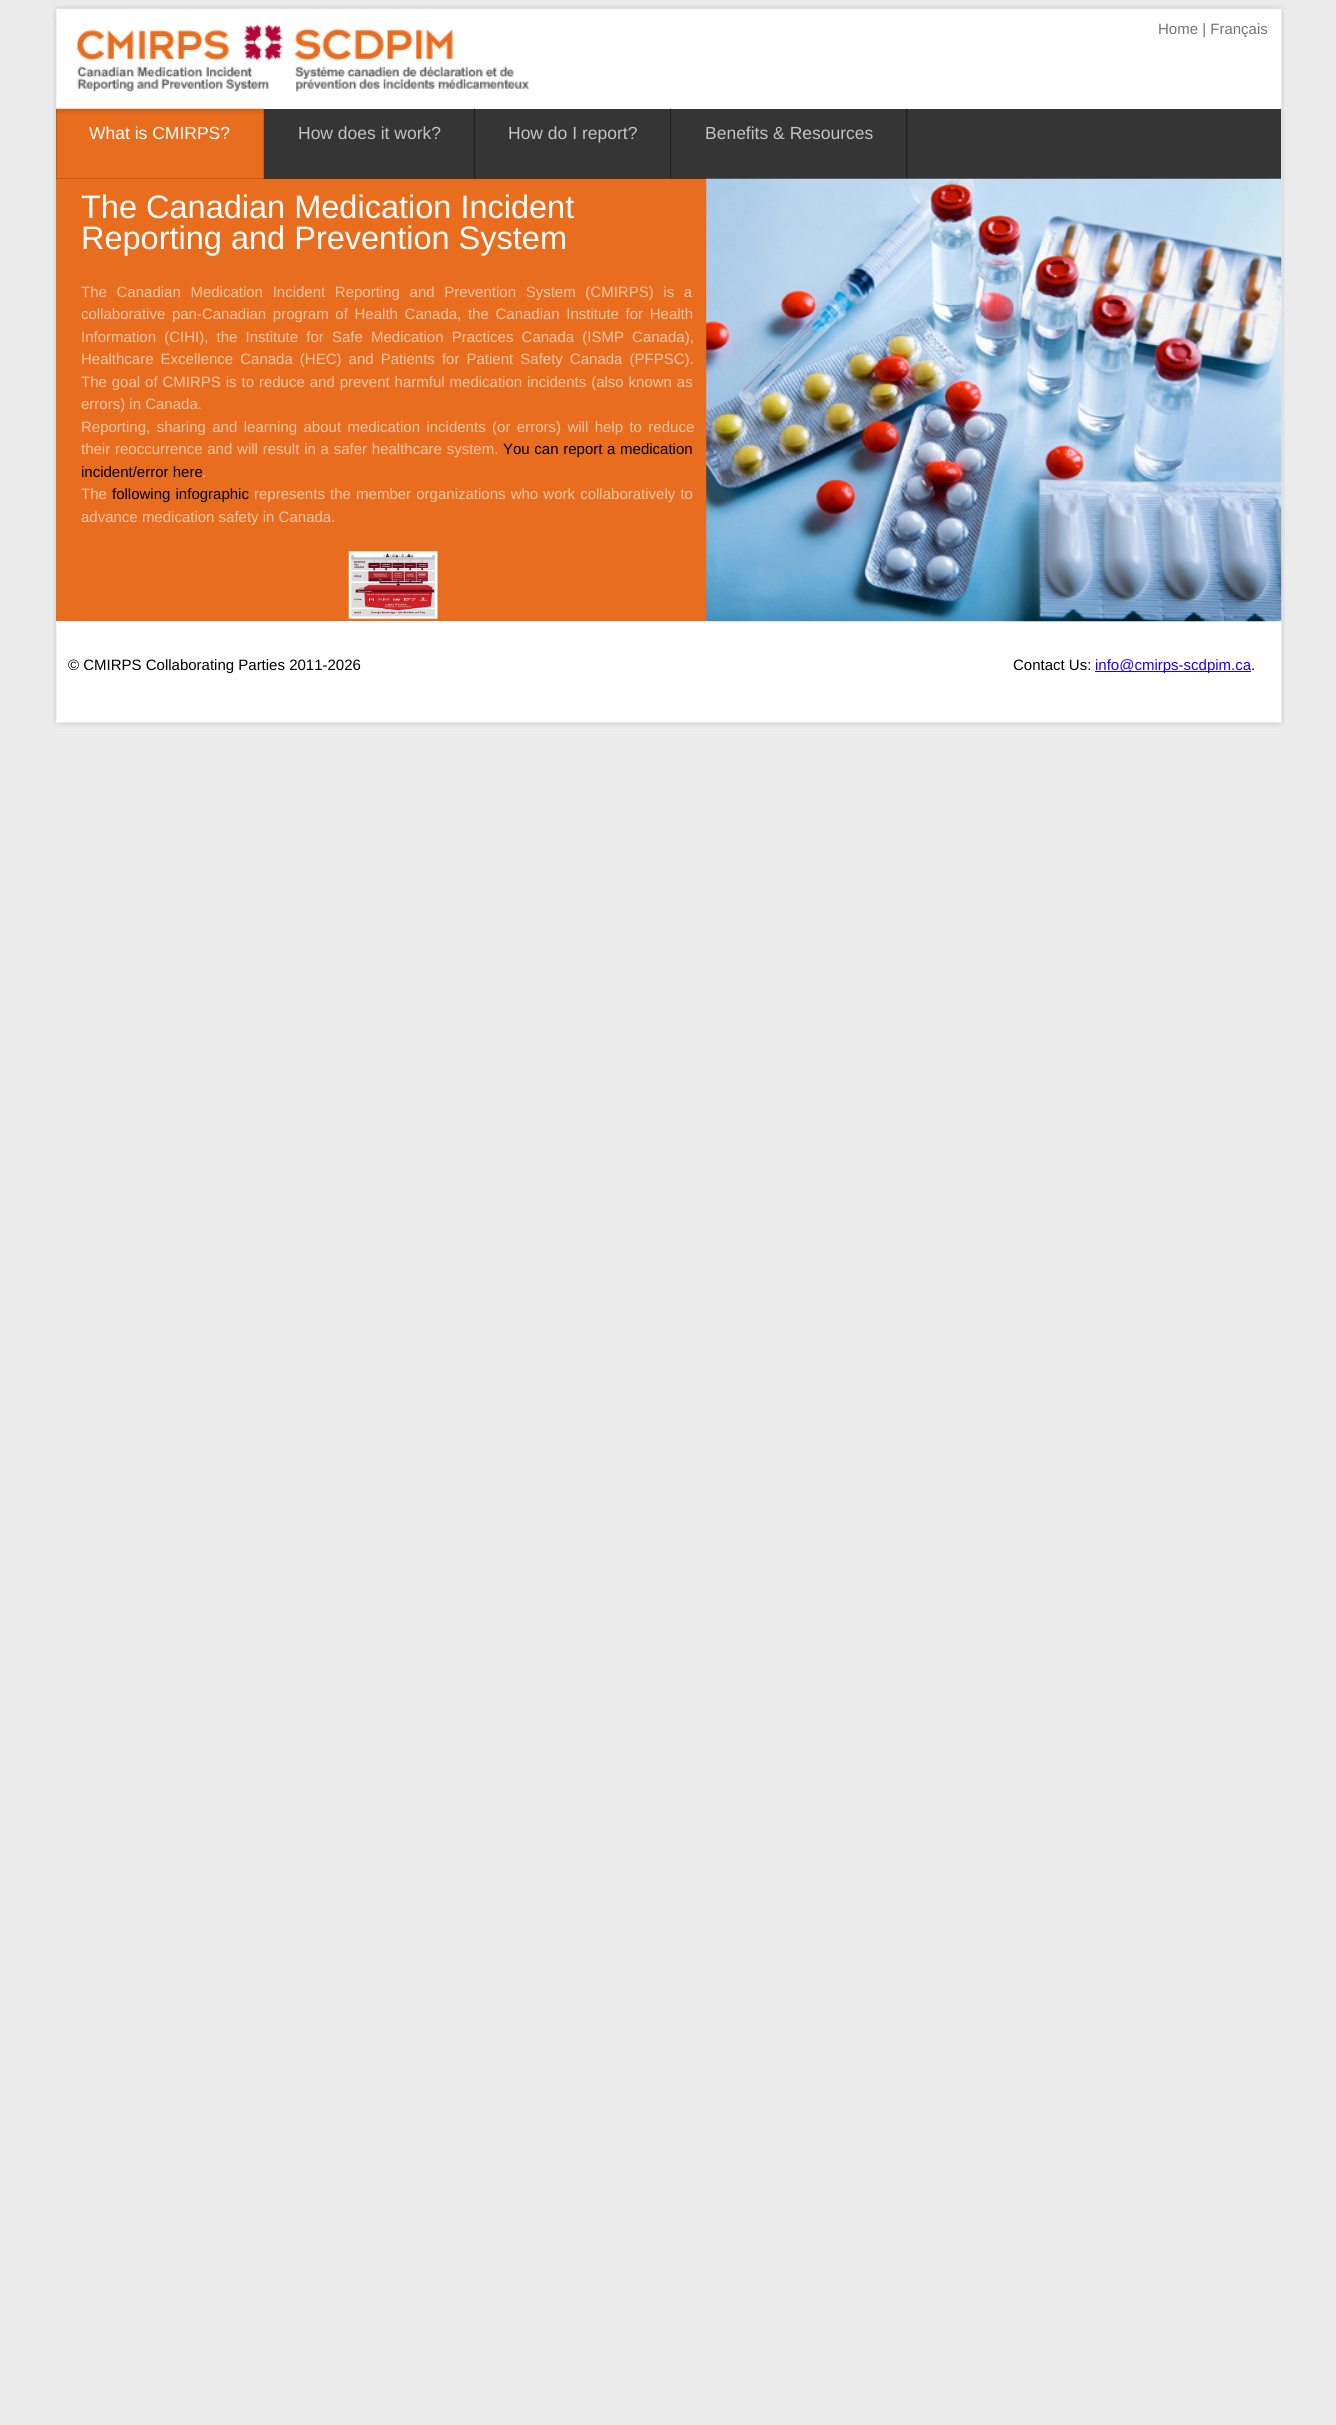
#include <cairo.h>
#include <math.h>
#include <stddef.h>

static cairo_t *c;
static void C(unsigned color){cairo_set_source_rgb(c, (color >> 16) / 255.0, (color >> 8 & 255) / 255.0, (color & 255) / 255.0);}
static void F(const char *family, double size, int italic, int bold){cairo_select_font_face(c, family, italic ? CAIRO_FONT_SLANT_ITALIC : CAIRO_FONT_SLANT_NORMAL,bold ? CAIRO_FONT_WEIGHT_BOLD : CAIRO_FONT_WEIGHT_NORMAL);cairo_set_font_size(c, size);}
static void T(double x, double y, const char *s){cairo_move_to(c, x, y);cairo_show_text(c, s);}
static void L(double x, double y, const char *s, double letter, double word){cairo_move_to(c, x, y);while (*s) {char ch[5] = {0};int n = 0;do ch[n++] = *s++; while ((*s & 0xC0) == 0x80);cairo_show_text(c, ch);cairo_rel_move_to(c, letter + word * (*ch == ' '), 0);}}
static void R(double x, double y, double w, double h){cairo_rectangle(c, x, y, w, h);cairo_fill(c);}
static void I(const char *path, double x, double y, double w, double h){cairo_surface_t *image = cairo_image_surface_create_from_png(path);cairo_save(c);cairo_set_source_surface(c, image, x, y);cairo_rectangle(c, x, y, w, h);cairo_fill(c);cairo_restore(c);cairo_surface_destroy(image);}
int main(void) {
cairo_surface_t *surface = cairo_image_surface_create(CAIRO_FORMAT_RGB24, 1336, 2425);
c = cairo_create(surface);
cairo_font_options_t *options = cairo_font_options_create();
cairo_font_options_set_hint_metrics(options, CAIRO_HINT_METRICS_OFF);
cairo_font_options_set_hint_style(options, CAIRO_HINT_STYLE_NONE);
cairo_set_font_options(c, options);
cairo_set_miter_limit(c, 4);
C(0xebebeb);
cairo_paint(c);
I("1.png",53,20,1232,713);
I("2.png",52,0,1233,20);
I("3.png",77,24,452,68);
F("Liberation Sans",15,0,0);
C(0x737373);
T(1158,34,"Home | Français");
C(0x353535);
R(56,109,1225,70);
I("4.png",56,108,208,71);
F("Liberation Sans",17.5,0,0);
C(0xffffff);
T(89,139,"What is CMIRPS?");
I("5.png",473,108,2,71);
C(0xc3c3c3);
T(298,139,"How does it work?");
I("6.png",670,108,2,71);
T(508,139,"How do I report?");
C(0x353535);
R(671,109,1,70);
I("7.png",906,108,2,71);
C(0xc3c3c3);
T(705,139,"Benefits & Resources");
C(0xe86d1f);
R(56,179,651,442);
F("Liberation Sans",32.5,0,0);
C(0xffffff);
T(81,218,"The Canadian Medication Incident");
T(81,249,"Reporting and Prevention System");
I("8.png",706,178,576,444);
F("Liberation Sans",15,0,0);
C(0xf7c5a6);
L(81,297,"The Canadian Medication Incident Reporting and Prevention System (CMIRPS) is a",0,5.5);
L(81,319,"collaborative pan-Canadian program of Health Canada, the Canadian Institute for Health",0,2.5);
L(81,342,"Information (CIHI), the Institute for Safe Medication Practices Canada (ISMP Canada),",0,4);
L(81,364,"Healthcare Excellence Canada (HEC) and Patients for Patient Safety Canada (PFPSC).",0,2.9);
L(81,387,"The goal of CMIRPS is to reduce and prevent harmful medication incidents (also known as",0,.75);
T(81,409,"errors) in Canada.");
L(81,432,"Reporting, sharing and learning about medication incidents (or errors) will help to reduce",0,2.25);
L(81,454,"their reoccurrence and will result in a safer healthcare system.",0,.6);
C(0x000000);
L(503,454,"You can report a medication",0,.5);
T(81,477,"incident/error here");
C(0xf7c5a6);
T(202,477,".");
T(81,499,"The");
C(0x000000);
L(112,499,"following infographic",0,1);
C(0xf7c5a6);
L(254,499,"represents the member organizations who work collaboratively to",0,1);
T(81,522,"advance medication safety in Canada.");
I("9.png",348,551,90,68);
I("10.png",53,721,1232,12);
C(0x000000);
T(68,670,"© CMIRPS Collaborating Parties 2011-2026");
T(1013,670,"Contact Us:");
C(0x1901ff);
R(1095,671,156,1);
T(1095,670,"info@cmirps-scdpim.ca");
C(0x000000);
T(1251,670,".");
cairo_surface_write_to_png(surface, "o.png");
cairo_font_options_destroy(options);
cairo_destroy(c);
cairo_surface_destroy(surface);
return 0;
}
